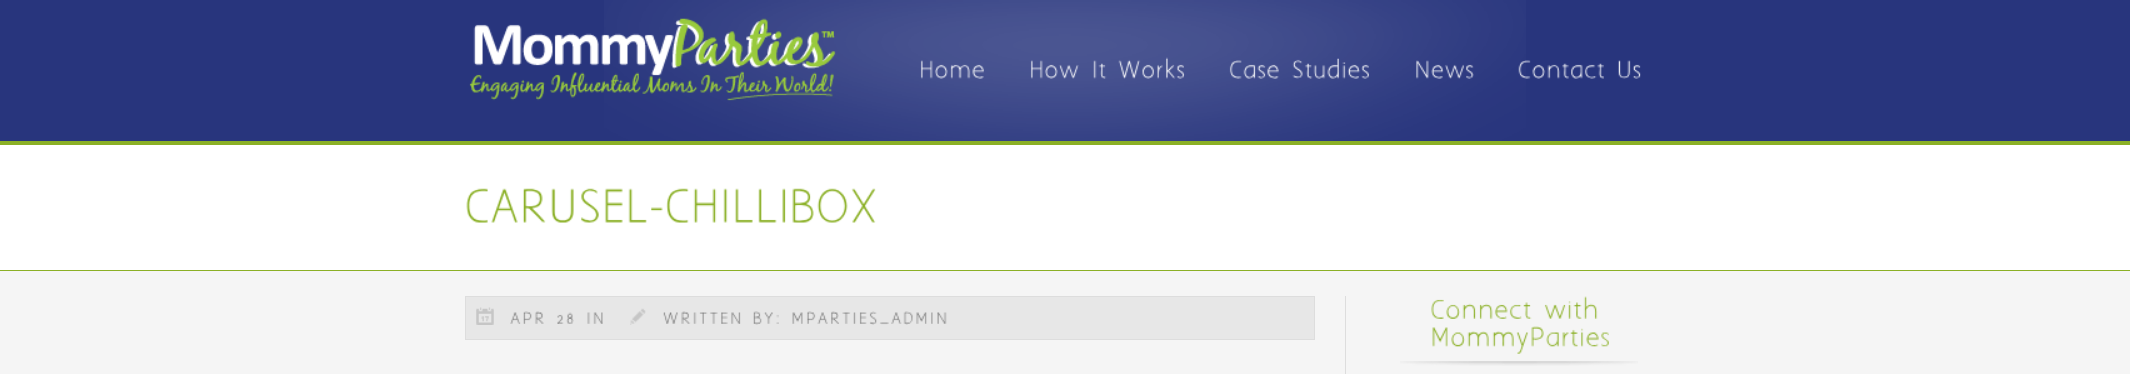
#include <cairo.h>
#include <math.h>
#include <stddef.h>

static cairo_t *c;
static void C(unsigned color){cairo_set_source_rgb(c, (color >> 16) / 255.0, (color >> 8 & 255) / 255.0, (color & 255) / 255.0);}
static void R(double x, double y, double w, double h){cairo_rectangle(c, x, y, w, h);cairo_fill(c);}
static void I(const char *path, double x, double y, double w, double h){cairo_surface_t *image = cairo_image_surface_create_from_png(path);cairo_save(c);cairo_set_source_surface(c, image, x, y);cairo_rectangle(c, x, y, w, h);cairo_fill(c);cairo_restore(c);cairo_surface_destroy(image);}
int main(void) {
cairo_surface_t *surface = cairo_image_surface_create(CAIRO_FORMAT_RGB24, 2130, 374);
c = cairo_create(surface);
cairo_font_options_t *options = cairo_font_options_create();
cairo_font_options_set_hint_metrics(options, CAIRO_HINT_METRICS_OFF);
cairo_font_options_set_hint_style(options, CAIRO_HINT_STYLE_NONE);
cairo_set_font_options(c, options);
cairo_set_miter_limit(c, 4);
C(0xf5f5f5);
cairo_paint(c);
C(0x28357d);
R(0,0,2130,141);
I("1.png",604,0,922,141);
C(0x8bb026);
R(0,141,2130,4);
I("2.png",469,18,367,83);
I("3.png",920,60,64,19);
I("4.png",1030,60,49,19);
I("5.png",1093,60,14,19);
I("6.png",1118,57,67,22);
I("7.png",1229,60,50,19);
I("8.png",1292,58,77,21);
I("9.png",1416,60,58,19);
I("10.png",1518,60,86,19);
I("11.png",1618,60,23,19);
C(0xffffff);
R(0,145,2130,125);
C(0x8bb026);
R(0,270,2130,1);
I("12.png",466,188,410,35);
C(0xe7e7e7);
cairo_rectangle(c,465.5,296.5,849,43);
cairo_fill_preserve(c);
C(0xdddddd);
cairo_set_line_width(c,1);
cairo_stroke(c);
I("13.png",476,307,18,18);
I("14.png",510,311,34,13);
I("15.png",557,312,17,12);
I("16.png",587,312,16,12);
I("17.png",630,308,16,17);
I("18.png",663,311,78,13);
I("19.png",753,311,26,14);
I("20.png",792,311,155,14);
R(1345,296,1,78);
I("21.png",1400,361,238,5);
I("22.png",1431,299,101,20);
I("23.png",1544,296,54,23);
I("24.png",1432,326,177,28);
cairo_surface_write_to_png(surface, "o.png");
cairo_font_options_destroy(options);
cairo_destroy(c);
cairo_surface_destroy(surface);
return 0;
}
